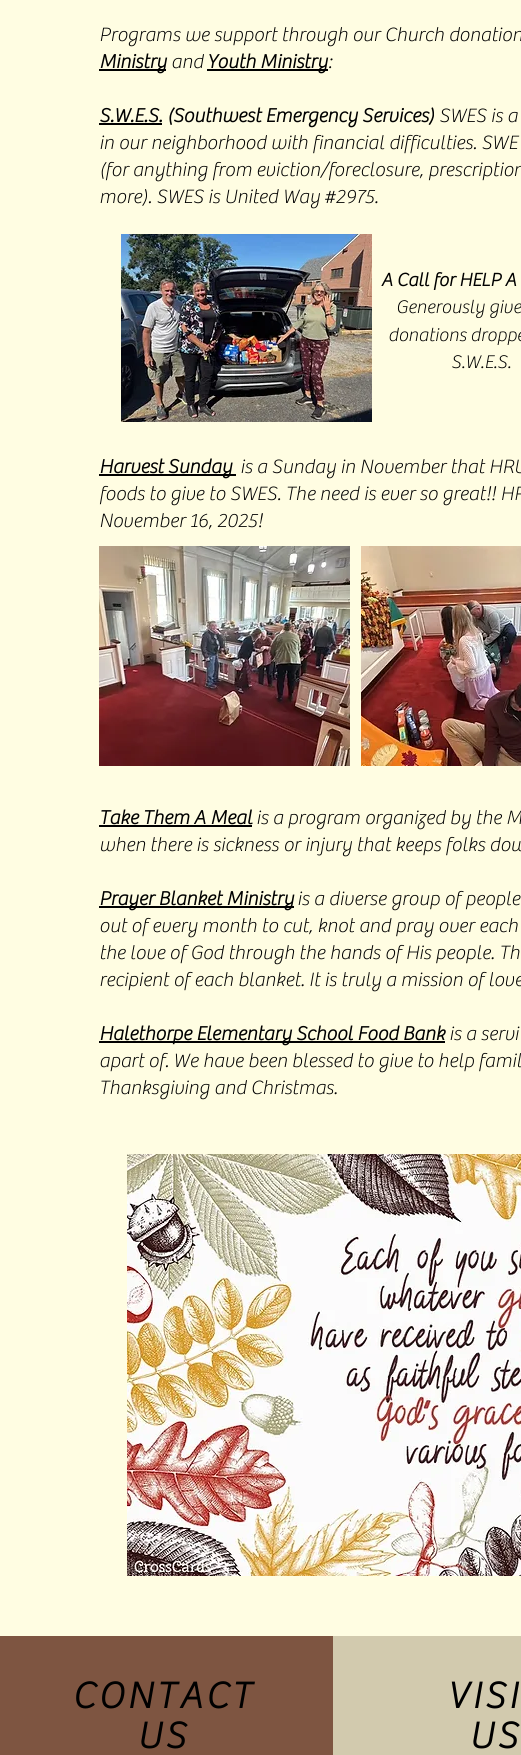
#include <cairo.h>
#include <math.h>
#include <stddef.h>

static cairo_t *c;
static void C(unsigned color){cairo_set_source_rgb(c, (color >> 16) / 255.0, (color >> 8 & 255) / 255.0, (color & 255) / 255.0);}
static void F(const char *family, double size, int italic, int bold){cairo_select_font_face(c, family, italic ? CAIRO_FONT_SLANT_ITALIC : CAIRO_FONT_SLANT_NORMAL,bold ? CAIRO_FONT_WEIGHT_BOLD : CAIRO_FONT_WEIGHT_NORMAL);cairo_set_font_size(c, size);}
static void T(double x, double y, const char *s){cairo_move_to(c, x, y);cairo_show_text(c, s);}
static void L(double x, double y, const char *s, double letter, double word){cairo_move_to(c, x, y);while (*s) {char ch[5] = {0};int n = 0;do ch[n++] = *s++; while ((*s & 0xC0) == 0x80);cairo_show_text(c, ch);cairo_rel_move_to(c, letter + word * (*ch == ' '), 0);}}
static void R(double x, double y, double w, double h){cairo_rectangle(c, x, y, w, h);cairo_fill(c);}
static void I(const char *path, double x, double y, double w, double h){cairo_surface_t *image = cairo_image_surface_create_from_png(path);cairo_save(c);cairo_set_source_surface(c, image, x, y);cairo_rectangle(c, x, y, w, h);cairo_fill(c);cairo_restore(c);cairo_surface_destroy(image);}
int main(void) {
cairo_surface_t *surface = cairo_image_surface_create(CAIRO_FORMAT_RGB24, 521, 1755);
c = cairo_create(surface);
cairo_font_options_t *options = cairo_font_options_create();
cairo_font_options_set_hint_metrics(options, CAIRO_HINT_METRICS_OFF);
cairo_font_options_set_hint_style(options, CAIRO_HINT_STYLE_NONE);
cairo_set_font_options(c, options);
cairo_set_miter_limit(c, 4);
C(0xfffde2);
cairo_paint(c);
F("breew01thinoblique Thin",20,0,0);
C(0x000000);
T(99,41,"Programs we support through our Church donation");
R(99,69,67,2);
F("breew01thinoblique",20,0,1);
T(99,68,"Ministry");
F("breew01thinoblique Thin",20,0,0);
T(171,68,"and");
R(207,69,121,2);
F("breew01thinoblique",20,0,1);
T(207,68,"Youth Ministry");
F("breew01thinoblique Thin",20,0,0);
T(328,68,":");
R(99,123,63,2);
F("breew01thinoblique",20,0,1);
T(99,122,"S.W.E.S. (Southwest Emergency Services)");
F("breew01thinoblique Thin",20,0,0);
T(439,122,"SWES is a");
T(99,149,"in our neighborhood with financial difficulties. SWE");
T(99,176,"(for anything from eviction/foreclosure, prescription");
T(99,203,"more). SWES is United Way #2975.");
R(99,474,137,2);
F("breew01thinoblique",20,0,1);
T(99,473,"Harvest Sunday");
F("breew01thinoblique Thin",20,0,0);
T(240,473,"is a Sunday in November that HRU");
T(99,500,"foods to give to SWES. The need is ever so great!! HR");
T(99,527,"November 16, 2025!");
F("breew01thinoblique",20,0,1);
T(99,824,"Take Them A Meal");
R(99,825,153,2);
F("breew01thinoblique Thin",20,0,0);
T(256,824,"is a program organized by the M");
T(99,851,"when there is sickness or injury that keeps folks dow");
R(99,906,195,2);
F("breew01thinoblique",20,0,1);
T(99,905,"Prayer Blanket Ministry");
F("breew01thinoblique Thin",20,0,0);
T(297,905,"is a diverse group of people");
T(99,932,"out of every month to cut, knot and pray over each");
T(99,959,"the love of God through the hands of His people. Th");
T(99,986,"recipient of each blanket. It is truly a mission of love");
R(99,1041,346,2);
F("breew01thinoblique",20,0,1);
T(99,1040,"Halethorpe Elementary School Food Bank");
F("breew01thinoblique Thin",20,0,0);
T(449,1040,"is a servi");
T(99,1067,"apart of. We have been blessed to give to help famil");
T(99,1094,"Thanksgiving and Christmas.");
I("1.png",121,234,251,188);
F("breew01thinoblique",19,0,1);
T(381,286,"A Call for HELP A");
F("breew01thinoblique Thin",19,0,0);
T(396,313,"Generously give");
T(388,341,"donations droppe");
T(451,368,"S.W.E.S.");
I("2.png",99,546,251,220);
I("3.png",361,546,160,220);
I("4.png",127,1154,394,422);
C(0x7e5541);
R(0,1636,333,119);
F("breew01thinoblique",38,0,1);
C(0x000000);
L(72,1708,"CONTACT",3.75,0);
L(137,1748,"US",3.75,0);
C(0xd2caae);
R(333,1636,188,119);
C(0x000000);
L(447,1708,"VISI",3.75,0);
L(469,1748,"US",3.75,0);
cairo_surface_write_to_png(surface, "o.png");
cairo_font_options_destroy(options);
cairo_destroy(c);
cairo_surface_destroy(surface);
return 0;
}
